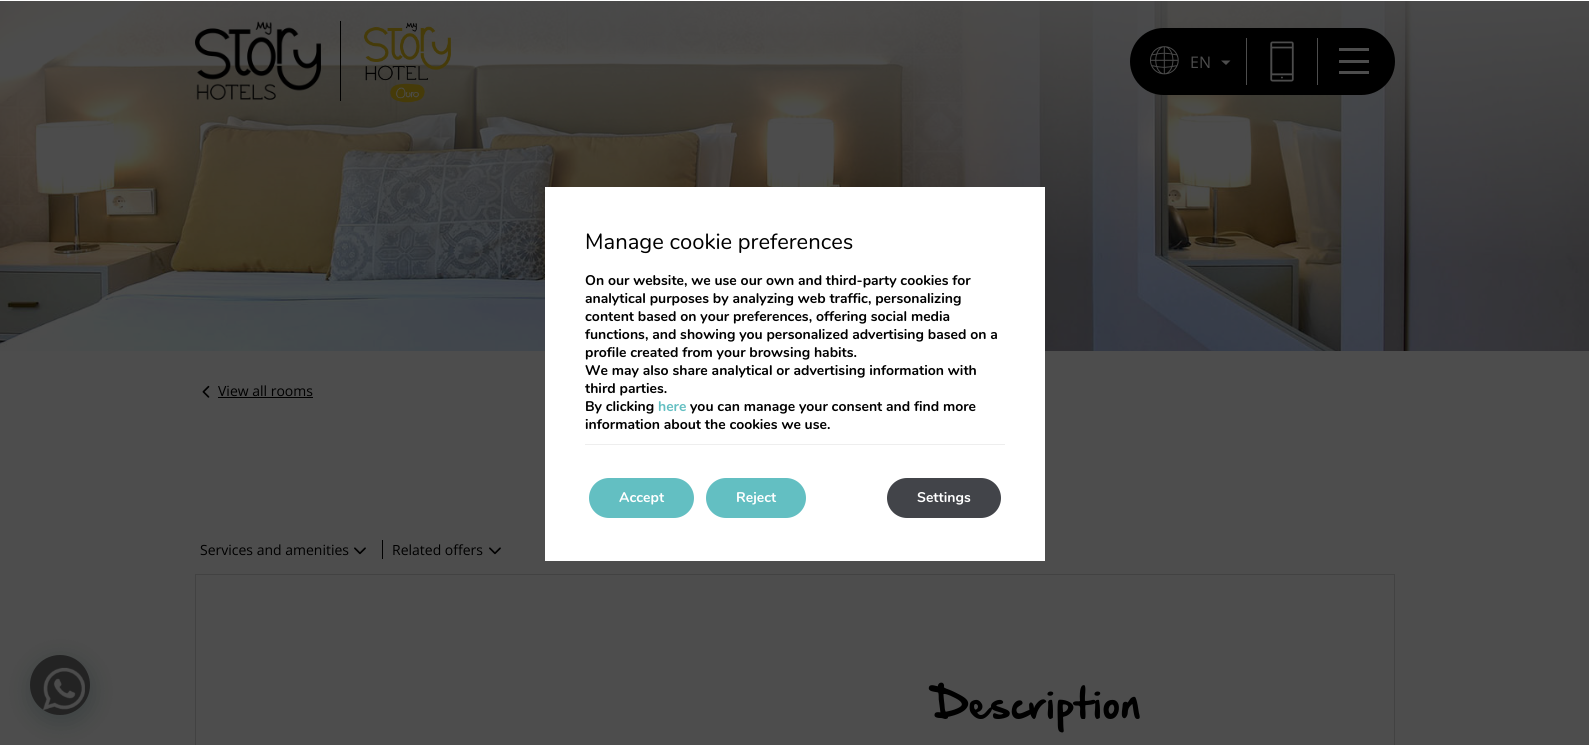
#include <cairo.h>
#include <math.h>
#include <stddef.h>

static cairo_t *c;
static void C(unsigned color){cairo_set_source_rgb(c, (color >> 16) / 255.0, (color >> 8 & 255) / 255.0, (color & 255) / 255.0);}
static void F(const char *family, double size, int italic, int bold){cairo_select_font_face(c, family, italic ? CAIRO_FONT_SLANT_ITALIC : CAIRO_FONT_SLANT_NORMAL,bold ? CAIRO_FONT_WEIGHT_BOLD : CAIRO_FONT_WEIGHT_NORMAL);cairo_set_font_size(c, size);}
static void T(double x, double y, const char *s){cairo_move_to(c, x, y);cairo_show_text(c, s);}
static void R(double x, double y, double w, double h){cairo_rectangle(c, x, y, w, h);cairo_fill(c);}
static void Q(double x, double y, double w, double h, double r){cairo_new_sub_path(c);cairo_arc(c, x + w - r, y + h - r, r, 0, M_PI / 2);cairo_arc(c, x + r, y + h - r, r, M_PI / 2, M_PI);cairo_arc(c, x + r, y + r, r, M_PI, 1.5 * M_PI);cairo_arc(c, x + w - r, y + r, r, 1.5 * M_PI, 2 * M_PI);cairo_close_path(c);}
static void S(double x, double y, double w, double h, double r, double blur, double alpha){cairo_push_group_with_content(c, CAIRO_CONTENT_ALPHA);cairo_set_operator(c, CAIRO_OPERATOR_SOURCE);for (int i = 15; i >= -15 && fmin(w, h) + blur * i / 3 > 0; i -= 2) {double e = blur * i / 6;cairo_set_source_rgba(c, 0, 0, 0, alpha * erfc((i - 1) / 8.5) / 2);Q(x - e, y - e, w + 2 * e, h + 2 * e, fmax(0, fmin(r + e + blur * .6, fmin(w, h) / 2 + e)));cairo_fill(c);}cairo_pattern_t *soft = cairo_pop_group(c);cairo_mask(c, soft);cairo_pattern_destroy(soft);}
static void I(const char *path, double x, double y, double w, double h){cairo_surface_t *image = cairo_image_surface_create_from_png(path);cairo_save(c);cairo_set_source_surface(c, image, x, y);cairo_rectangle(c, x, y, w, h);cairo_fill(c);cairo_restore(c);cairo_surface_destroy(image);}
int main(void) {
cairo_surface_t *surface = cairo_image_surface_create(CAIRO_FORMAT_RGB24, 1589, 745);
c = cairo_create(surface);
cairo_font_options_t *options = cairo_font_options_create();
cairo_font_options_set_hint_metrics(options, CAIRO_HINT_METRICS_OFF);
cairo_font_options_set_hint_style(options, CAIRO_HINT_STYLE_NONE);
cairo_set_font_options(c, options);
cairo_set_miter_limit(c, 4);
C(0x4d4d4d);
cairo_paint(c);
I("6.png",0,1,1589,350);
I("1.png",195,21,126,79);
C(0x000000);
R(340,21,1,80);
I("2.png",364,22,87,81);
Q(1130,28,265,67,33.5);
cairo_fill(c);
I("3.png",1150,46,29,29);
F("Open Sans",16,0,0);
C(0x4d4d4d);
T(1190,68,"EN");
cairo_new_path(c);
cairo_move_to(c,1221,60.5);
cairo_line_to(c,1226,65);
cairo_line_to(c,1230.5,60.5);
cairo_close_path(c);
cairo_fill(c);
R(1317,38,1,47);
R(1246,38,1,47);
I("4.png",1270,41,24,41);
R(1339,48,30,3);
R(1339,60,30,3);
R(1339,71,30,3);
C(0x021c19);
S(31,661,60,60,30,12,.24);
C(0x232323);
cairo_arc(c,60,685,30,0,2 * M_PI);
cairo_fill(c);
I("5.png",42,667,43,43);
I("7.png",202,385,8,13);
F("Open Sans",14,0,0);
C(0x000000);
T(218,396,"View all rooms");
R(218,397,95,1);
R(382,540,1,19);
T(200,555,"Services and amenities");
I("8.png",354,547,12,8);
T(392,555,"Related offers");
I("8.png",489,547,12,8);
cairo_rectangle(c,195.5,574.5,1199,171);
C(0x424242);
cairo_set_line_width(c,1);
cairo_stroke(c);
F("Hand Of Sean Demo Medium",36.75,0,0);
C(0x000000);
T(934,719,"Description");
C(0xffffff);
R(0,0,1589,1);
R(545,187,500,374);
F("Nunito",22,0,0);
C(0x000000);
T(585,249,"Manage cookie preferences");
F("Nunito",14,0,1);
T(585,285,"On our website, we use our own and third-party cookies for");
T(585,303,"analytical purposes by analyzing web traffic, personalizing");
T(585,321,"content based on your preferences, offering social media");
T(585,339,"functions, and showing you personalized advertising based on a");
T(585,357,"profile created from your browsing habits.");
T(585,375,"We may also share analytical or advertising information with");
T(585,393,"third parties.");
T(585,411,"By clicking");
C(0x63bfc2);
T(658,411,"here");
C(0x000000);
T(690,411,"you can manage your consent and find more");
T(585,429,"information about the cookies we use.");
C(0xeeeeee);
R(585,444,420,1);
C(0x63bfc2);
Q(589,478,105,40,20);
cairo_fill(c);
C(0xffffff);
T(619,502,"Accept");
C(0x63bfc2);
Q(706,478,100,40,20);
cairo_fill(c);
C(0xffffff);
T(736,502,"Reject");
C(0x424449);
Q(887,478,114,40,20);
cairo_fill(c);
C(0xffffff);
T(917,502,"Settings");
cairo_surface_write_to_png(surface, "o.png");
cairo_font_options_destroy(options);
cairo_destroy(c);
cairo_surface_destroy(surface);
return 0;
}
